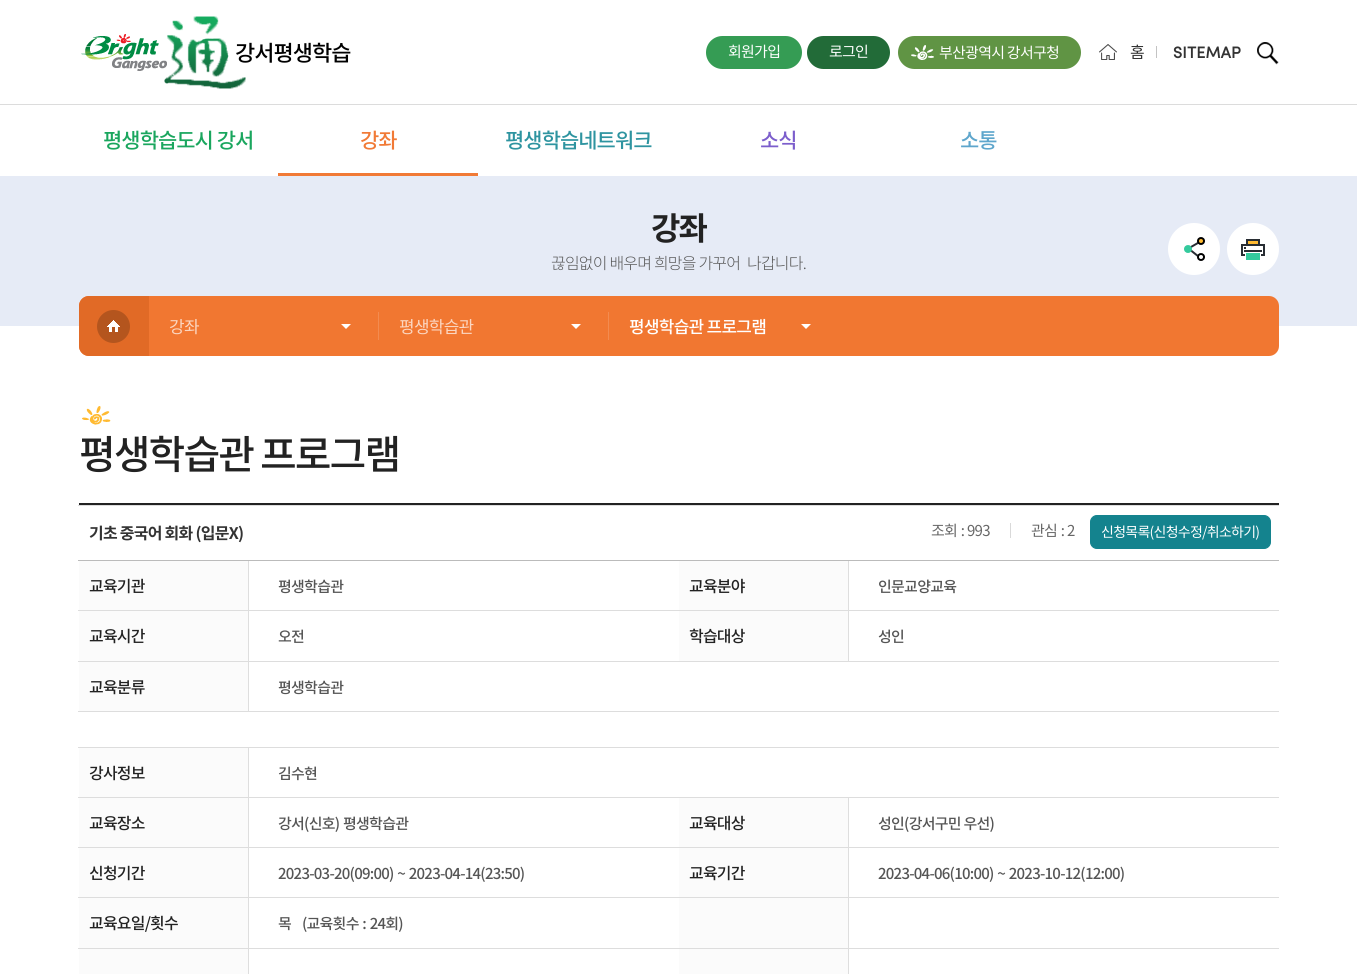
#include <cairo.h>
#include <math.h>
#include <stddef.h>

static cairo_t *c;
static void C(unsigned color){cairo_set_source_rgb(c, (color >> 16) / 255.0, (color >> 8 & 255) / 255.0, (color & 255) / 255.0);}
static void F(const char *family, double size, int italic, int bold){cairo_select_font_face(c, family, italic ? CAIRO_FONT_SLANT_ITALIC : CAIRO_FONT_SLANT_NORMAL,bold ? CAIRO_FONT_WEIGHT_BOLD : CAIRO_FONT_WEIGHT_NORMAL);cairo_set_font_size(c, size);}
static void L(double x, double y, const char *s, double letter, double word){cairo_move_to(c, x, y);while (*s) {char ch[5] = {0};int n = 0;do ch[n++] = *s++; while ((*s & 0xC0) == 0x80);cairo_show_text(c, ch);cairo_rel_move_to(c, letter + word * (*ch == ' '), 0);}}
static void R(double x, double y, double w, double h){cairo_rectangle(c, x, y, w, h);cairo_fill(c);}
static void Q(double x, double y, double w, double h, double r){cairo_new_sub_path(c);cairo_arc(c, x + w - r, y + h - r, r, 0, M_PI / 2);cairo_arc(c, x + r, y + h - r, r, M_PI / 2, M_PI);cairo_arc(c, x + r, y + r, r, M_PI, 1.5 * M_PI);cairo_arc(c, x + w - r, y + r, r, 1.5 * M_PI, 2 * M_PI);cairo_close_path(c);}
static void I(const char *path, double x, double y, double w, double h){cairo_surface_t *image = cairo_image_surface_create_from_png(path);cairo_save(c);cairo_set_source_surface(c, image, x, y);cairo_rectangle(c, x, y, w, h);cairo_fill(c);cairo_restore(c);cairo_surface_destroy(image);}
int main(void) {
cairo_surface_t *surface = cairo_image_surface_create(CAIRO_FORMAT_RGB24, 1357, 974);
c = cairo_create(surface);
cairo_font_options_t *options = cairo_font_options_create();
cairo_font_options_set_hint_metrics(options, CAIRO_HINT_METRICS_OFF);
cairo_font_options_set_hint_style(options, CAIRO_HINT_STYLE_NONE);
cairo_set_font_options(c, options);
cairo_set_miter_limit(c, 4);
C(0xffffff);
cairo_paint(c);
I("1.png",81,16,165,73);
F("Noto Sans KR Medium",22,0,0);
C(0x000000);
L(235,61,"강서평생학습",-1,0);
C(0xdcdcdc);
R(0,104,1357,1);
F("Noto Sans KR Medium",21,0,0);
C(0x1aa65e);
L(103,148,"평생학습도시 강서",-1,0);
C(0xf17a36);
L(360,148,"강좌",-1,0);
R(278,173,200,3);
C(0x2e94a0);
L(505,148,"평생학습네트워크",-1,0);
C(0x7c5ecc);
L(760,148,"소식",-1,0);
C(0x5ea6cc);
L(960,148,"소통",-1,0);
C(0x359c54);
Q(706,36,96,33,16.5);
cairo_fill(c);
F("Noto Sans KR",15,0,0);
C(0xffffff);
L(728,57,"회원가입",-.75,0);
C(0x226b38);
Q(807,36,83,33,16.5);
cairo_fill(c);
C(0xffffff);
L(829,57,"로그인",-.75,0);
C(0x609444);
Q(898,36,183,33,16.5);
cairo_fill(c);
I("2.png",911,45,23,15);
C(0xffffff);
L(939,58,"부산광역시 강서구청",-.75,0);
I("3.png",1099,44,18,16);
F("Noto Sans KR",16,0,0);
C(0x333333);
L(1130,58,"홈",-.8,0);
C(0xc3c3c3);
R(1156,46,1,12);
F("Sofia",16,0,1);
C(0x333333);
L(1173,58,"SITEMAP",.25,0);
I("4.png",1257,42,22,23);
C(0xe6ebf6);
R(0,176,1357,150);
F("Noto Sans KR",32,0,1);
C(0x222222);
L(651,240,"강좌",-2,0);
C(0xffffff);
cairo_new_path(c);
cairo_arc(c,1194,249,26,0,2 * M_PI);
cairo_fill(c);
I("5.png",1184,237,21,24);
cairo_arc(c,1253,249,26,0,2 * M_PI);
cairo_fill(c);
I("6.png",1241,239,24,21);
F("Noto Sans KR Light",16,0,0);
C(0x555555);
L(551,269,"끊임없이 배우며 희망을 가꾸어",-.8,0);
L(747,269,"나갑니다.",-.8,0);
C(0xf17731);
Q(79,296,1200,60,10);
cairo_fill(c);
C(0xe16a26);
cairo_new_path(c);
cairo_move_to(c,89,296);
cairo_line_to(c,149,296);
cairo_line_to(c,149,356);
cairo_line_to(c,89,356);
cairo_curve_to(c,83.5,356,79,351.5,79,346);
cairo_line_to(c,79,306);
cairo_curve_to(c,79,300.5,83.5,296,89,296);
cairo_close_path(c);
cairo_fill(c);
C(0xb4551e);
cairo_arc(c,113.5,326.5,16.5,0,2 * M_PI);
cairo_fill(c);
I("7.png",107,320,13,12);
F("Noto Sans KR",17,0,0);
C(0xfbd6c1);
L(169,333,"강좌",-.75,0);
C(0xffffff);
cairo_new_path(c);
cairo_move_to(c,341,324);
cairo_line_to(c,351,324);
cairo_line_to(c,346,329);
cairo_close_path(c);
cairo_fill(c);
C(0xf38b50);
R(378,312,1,28);
C(0xfbd6c1);
L(399,333,"평생학습관",-.75,0);
C(0xffffff);
cairo_new_path(c);
cairo_move_to(c,571,324);
cairo_line_to(c,581,324);
cairo_line_to(c,576,329);
cairo_close_path(c);
cairo_fill(c);
C(0xf38b50);
R(608,312,1,28);
F("Noto Sans KR Medium",17,0,0);
C(0xffffff);
L(629,333,"평생학습관 프로그램",-.75,0);
cairo_new_path(c);
cairo_move_to(c,801,324);
cairo_line_to(c,811,324);
cairo_line_to(c,806,329);
cairo_close_path(c);
cairo_fill(c);
I("8.png",82,406,29,19);
F("Noto Sans KR Medium",40,0,0);
C(0x222222);
L(79,469,"평생학습관 프로그램",-2,0);
R(79,503,1200,2);
C(0xdddddd);
R(78,505,1201,1);
C(0xbbbbbb);
R(78,560,1201,1);
F("Noto Sans KR",16,0,1);
C(0x333333);
L(89,539,"기초 중국어 회화 (입문X)",-.75,0);
F("Noto Sans KR",15,0,0);
C(0x666666);
L(931,536,"조회 :",-.75,1);
L(967,536,"993",-.75,0);
C(0xd9d9d9);
R(1010,523,1,15);
C(0x666666);
L(1031,536,"관심 :",-.75,1);
L(1067,536,"2",-.75,0);
C(0x14838e);
Q(1090.5,515.5,180,33,6.5);
cairo_fill_preserve(c);
cairo_set_line_width(c,1);
cairo_stroke(c);
F("Noto Sans KR",14,0,0);
C(0xffffff);
L(1101,537,"신청목록(신청수정/취소하기)",-.75,0);
C(0xfbfbfb);
R(79,561,169,49);
F("Noto Sans KR Medium",16,0,0);
C(0x222222);
L(89,592,"교육기관",-.8,0);
C(0xdddddd);
R(848,610,431,1);
R(248,661,1031,1);
C(0xdedede);
R(848,610,1,52);
C(0xdddddd);
R(248,610,601,1);
R(78,711,1201,1);
C(0xdedede);
R(248,661,1,51);
C(0xdddddd);
R(78,661,171,1);
C(0xdedede);
R(248,610,1,52);
C(0xdddddd);
R(78,610,171,1);
C(0xdedede);
R(248,561,1,50);
F("Noto Sans KR Medium",15,0,0);
C(0x555555);
L(278,592,"평생학습관",-.75,0);
C(0xfbfbfb);
R(679,561,169,49);
F("Noto Sans KR Medium",16,0,0);
C(0x222222);
L(689,592,"교육분야",-.8,0);
C(0xdedede);
R(848,561,1,50);
F("Noto Sans KR Medium",15,0,0);
C(0x555555);
L(878,592,"인문교양교육",-.75,0);
C(0xfbfbfb);
R(79,611,169,50);
F("Noto Sans KR Medium",16,0,0);
C(0x222222);
L(89,642,"교육시간",-.8,0);
F("Noto Sans KR Medium",15,0,0);
C(0x555555);
L(278,642,"오전",-.75,0);
C(0xfbfbfb);
R(679,611,169,50);
F("Noto Sans KR Medium",16,0,0);
C(0x222222);
L(689,642,"학습대상",-.8,0);
F("Noto Sans KR Medium",15,0,0);
C(0x555555);
L(878,642,"성인",-.75,0);
C(0xfbfbfb);
R(79,662,169,49);
F("Noto Sans KR Medium",16,0,0);
C(0x222222);
L(89,693,"교육분류",-.8,0);
F("Noto Sans KR Medium",15,0,0);
C(0x555555);
L(278,693,"평생학습관",-.75,0);
C(0xfbfbfb);
R(79,748,169,49);
C(0xdddddd);
R(248,747,1031,1);
R(848,797,431,1);
R(848,847,431,1);
R(848,897,431,1);
R(848,948,431,1);
C(0xdedede);
R(848,948,1,26);
C(0xdddddd);
R(248,948,601,1);
C(0xdedede);
R(848,897,1,52);
C(0xdddddd);
R(248,897,601,1);
C(0xdedede);
R(848,847,1,51);
C(0xdddddd);
R(248,847,601,1);
C(0xdedede);
R(848,797,1,51);
C(0xdddddd);
R(248,797,601,1);
C(0xdedede);
R(248,948,1,26);
C(0xdddddd);
R(78,948,171,1);
C(0xdedede);
R(248,897,1,52);
C(0xdddddd);
R(78,897,171,1);
C(0xdedede);
R(248,847,1,51);
C(0xdddddd);
R(78,847,171,1);
C(0xdedede);
R(248,797,1,51);
C(0xdddddd);
R(78,797,171,1);
C(0xdedede);
R(248,747,1,51);
C(0xdddddd);
R(78,747,171,1);
F("Noto Sans KR Medium",16,0,0);
C(0x222222);
L(89,779,"강사정보",-.8,0);
F("Noto Sans KR Medium",15,0,0);
C(0x555555);
L(278,779,"김수현",-.75,0);
C(0xfbfbfb);
R(79,798,169,49);
F("Noto Sans KR Medium",16,0,0);
C(0x222222);
L(89,829,"교육장소",-.8,0);
F("Noto Sans KR Medium",15,0,0);
C(0x555555);
L(278,829,"강서(신호) 평생학습관",-.75,1);
C(0xfbfbfb);
R(679,798,169,49);
F("Noto Sans KR Medium",16,0,0);
C(0x222222);
L(689,829,"교육대상",-.8,0);
F("Noto Sans KR Medium",15,0,0);
C(0x555555);
L(878,829,"성인(강서구민 우선)",-.75,0);
C(0xfbfbfb);
R(79,848,169,49);
F("Noto Sans KR Medium",16,0,0);
C(0x222222);
L(89,879,"신청기간",-.8,0);
F("Noto Sans KR Medium",15,0,0);
C(0x555555);
L(278,879,"2023-03-20(09:00) ~ 2023-04-14(23:50)",-.75,1);
C(0xfbfbfb);
R(679,848,169,49);
F("Noto Sans KR Medium",16,0,0);
C(0x222222);
L(689,879,"교육기간",-.8,0);
F("Noto Sans KR Medium",15,0,0);
C(0x555555);
L(878,879,"2023-04-06(10:00) ~ 2023-10-12(12:00)",-.75,1);
C(0xfbfbfb);
R(79,898,169,50);
F("Noto Sans KR Medium",16,0,0);
C(0x222222);
L(89,929,"교육요일/횟수",-.8,0);
C(0xfbfbfb);
R(679,898,169,50);
F("Noto Sans KR Medium",15,0,0);
C(0x555555);
L(278,929,"목   (교육횟수 : 24회)",-.75,1);
C(0xfbfbfb);
R(79,949,169,25);
R(679,949,169,25);
cairo_surface_write_to_png(surface, "o.png");
cairo_font_options_destroy(options);
cairo_destroy(c);
cairo_surface_destroy(surface);
return 0;
}
